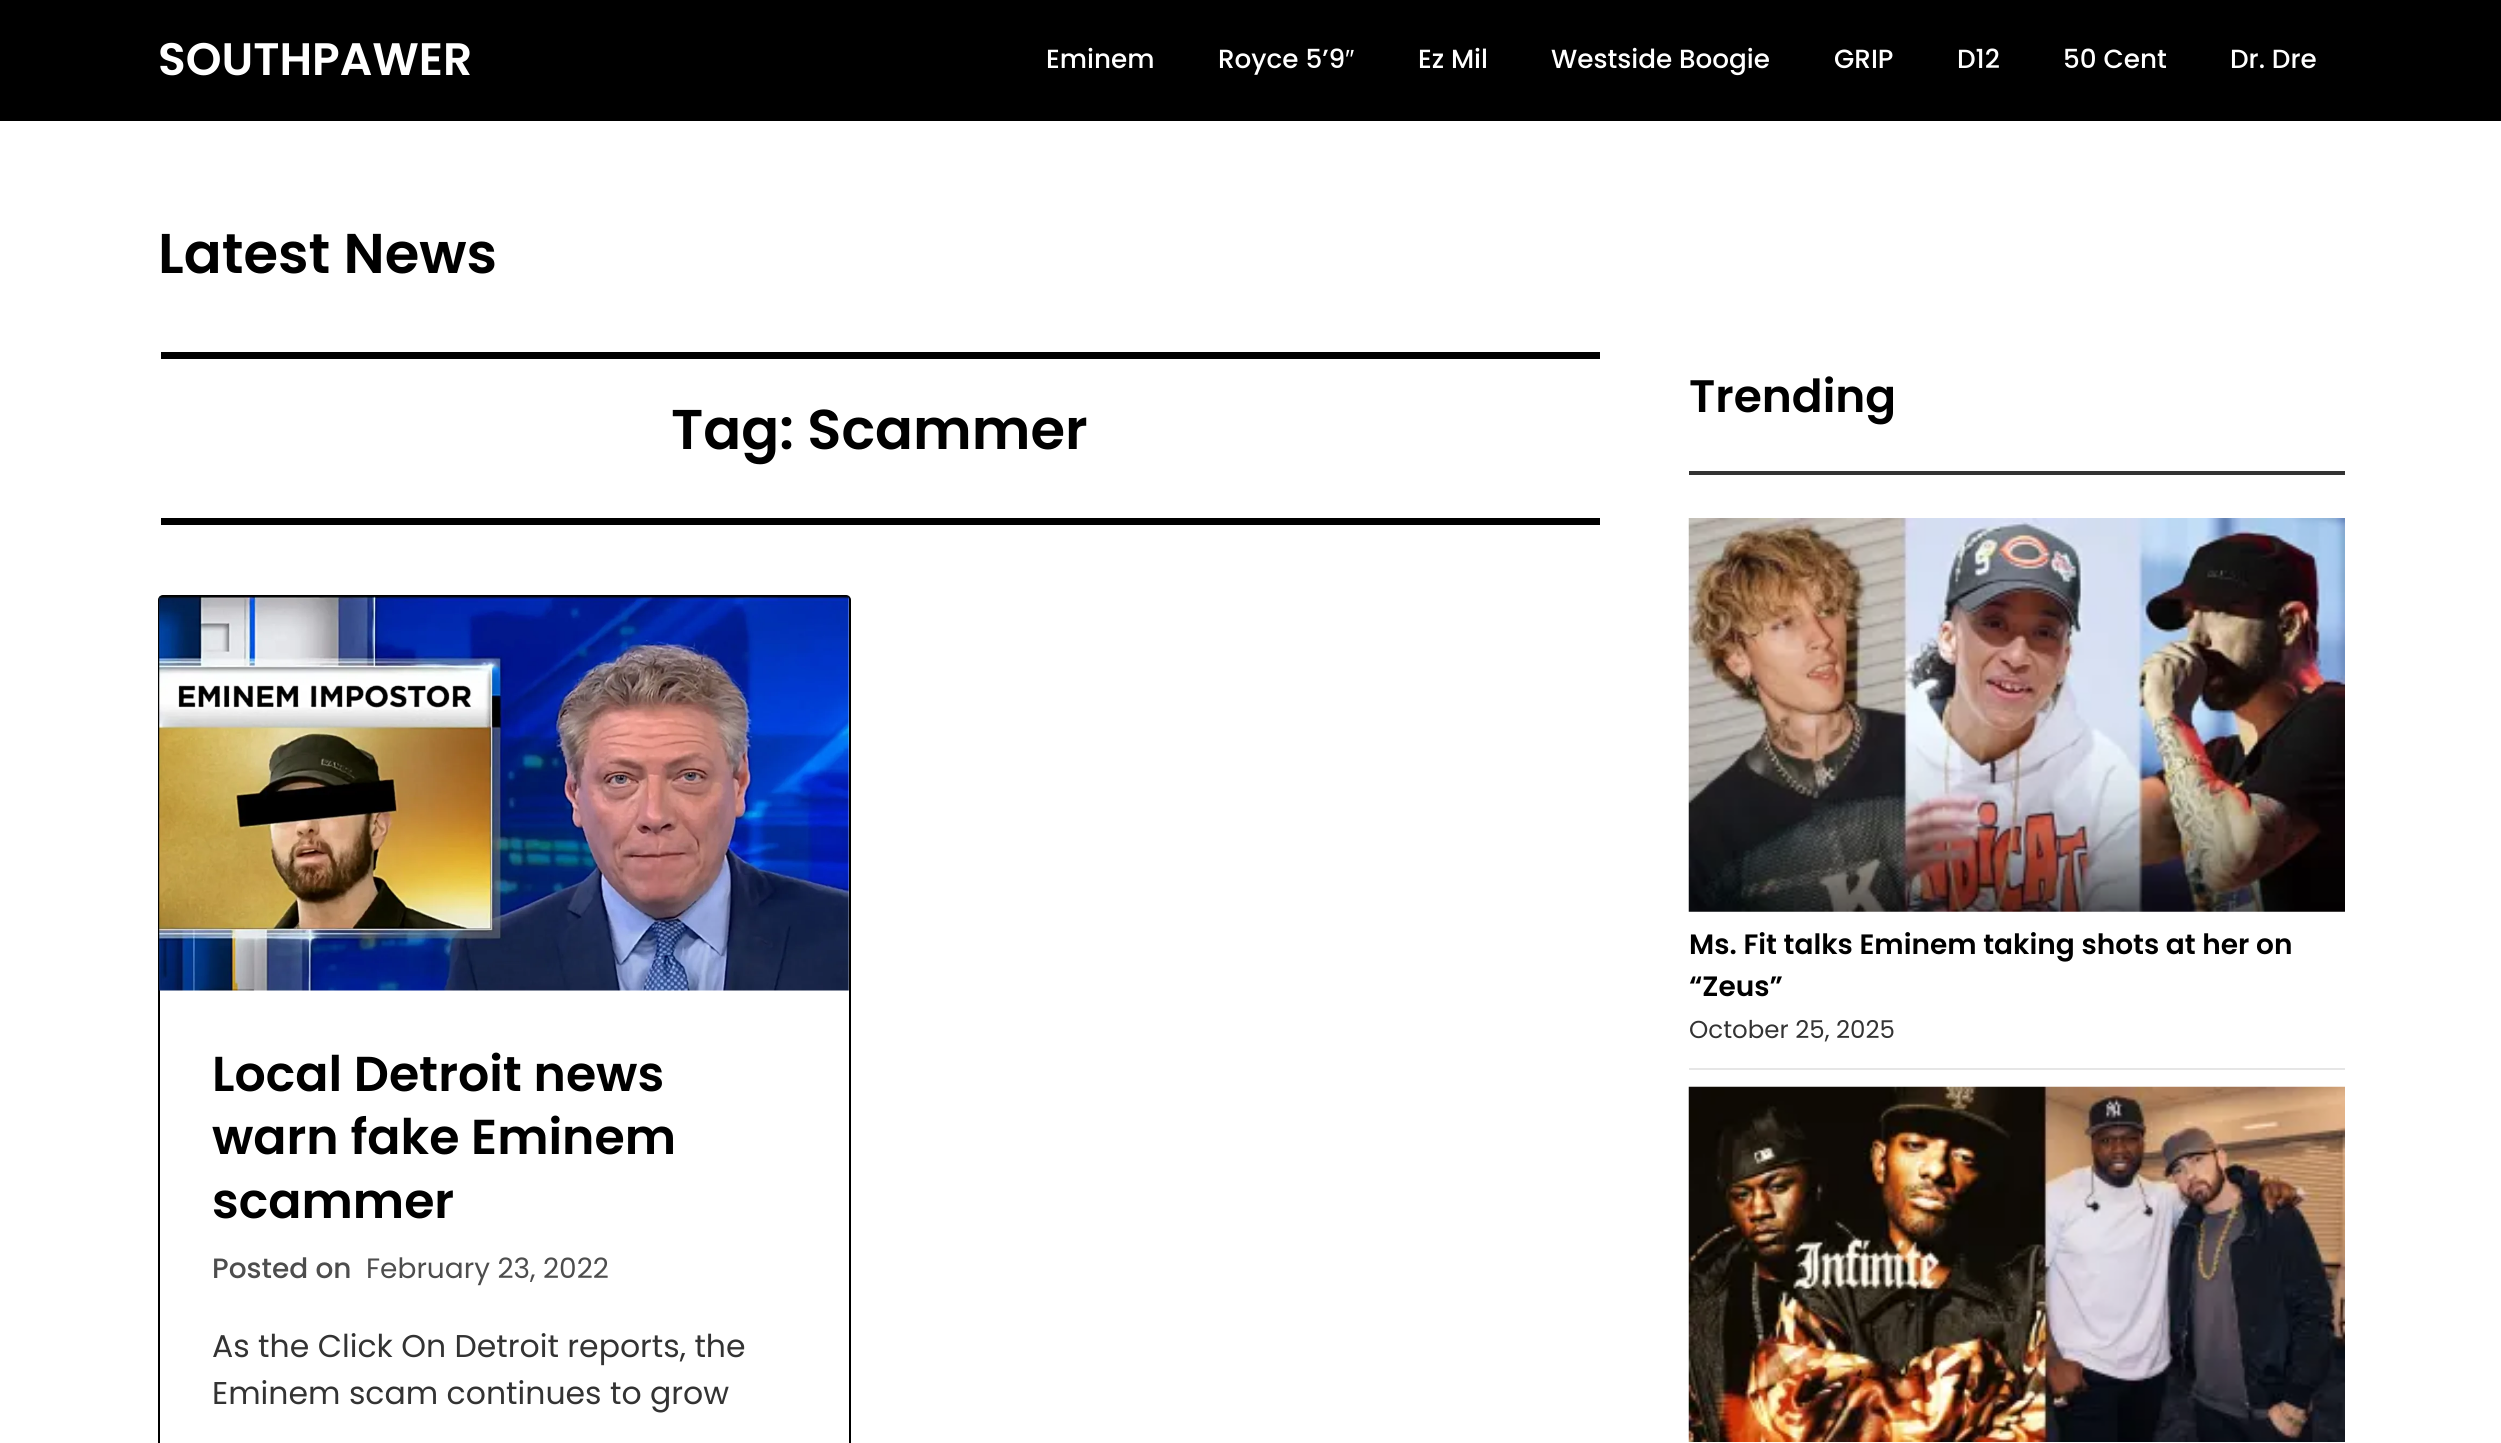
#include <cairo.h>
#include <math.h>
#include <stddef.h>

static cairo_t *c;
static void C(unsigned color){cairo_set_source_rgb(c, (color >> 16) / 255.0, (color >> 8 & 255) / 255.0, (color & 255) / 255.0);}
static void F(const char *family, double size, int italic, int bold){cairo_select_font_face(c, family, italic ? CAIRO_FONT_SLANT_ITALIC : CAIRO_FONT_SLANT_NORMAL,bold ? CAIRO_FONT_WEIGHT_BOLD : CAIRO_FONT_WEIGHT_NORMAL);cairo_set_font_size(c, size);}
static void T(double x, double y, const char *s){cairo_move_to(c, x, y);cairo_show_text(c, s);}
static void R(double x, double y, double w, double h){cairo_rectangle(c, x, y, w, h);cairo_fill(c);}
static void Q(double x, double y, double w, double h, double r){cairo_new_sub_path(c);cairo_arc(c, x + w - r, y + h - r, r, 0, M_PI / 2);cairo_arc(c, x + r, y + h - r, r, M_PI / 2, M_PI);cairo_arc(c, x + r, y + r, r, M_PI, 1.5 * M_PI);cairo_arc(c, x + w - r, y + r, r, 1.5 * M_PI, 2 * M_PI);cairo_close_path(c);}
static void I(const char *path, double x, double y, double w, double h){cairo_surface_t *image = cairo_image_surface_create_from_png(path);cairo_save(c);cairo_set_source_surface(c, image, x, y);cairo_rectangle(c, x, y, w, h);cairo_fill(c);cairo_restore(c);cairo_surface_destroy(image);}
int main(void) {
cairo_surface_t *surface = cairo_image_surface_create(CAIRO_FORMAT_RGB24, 2501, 1443);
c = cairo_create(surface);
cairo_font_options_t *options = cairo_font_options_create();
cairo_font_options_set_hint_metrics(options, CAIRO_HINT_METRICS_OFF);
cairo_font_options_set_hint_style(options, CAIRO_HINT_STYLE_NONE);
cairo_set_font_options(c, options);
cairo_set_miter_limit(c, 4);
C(0xffffff);
cairo_paint(c);
C(0x000000);
R(0,0,2501,121);
F("Poppins SemiBold",45.5,0,0);
C(0xffffff);
T(158,75,"SOUTHPAWER");
F("Poppins Medium",26.25,0,0);
T(1046,68,"Eminem");
T(1218,68,"Royce 5’9");
F("Liberation Sans",26.25,0,0);
T(1345,68,"″");
F("Poppins Medium",26.25,0,0);
T(1418,68,"Ez Mil");
T(1551,68,"Westside Boogie");
T(1834,68,"GRIP");
T(1957,68,"D12");
T(2063,68,"50 Cent");
T(2230,68,"Dr. Dre");
F("Poppins SemiBold",56,0,0);
C(0x000000);
T(158,273,"Latest News");
R(161,352,1439,7);
R(161,518,1439,7);
T(671,449,"Tag: Scammer");
Q(159,596,691,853,4);
cairo_stroke(c);
I("1.png",159,596,690,395);
F("Poppins SemiBold",49,0,0);
T(212,1091,"Local Detroit news");
T(212,1154,"warn fake Eminem");
T(212,1218,"scammer");
F("Poppins Medium",28,0,0);
C(0x4d4d4d);
T(212,1278,"Posted on");
F("Poppins",28,0,0);
T(366,1278,"February 23, 2022");
F("Poppins",31.5,0,0);
C(0x333333);
T(212,1357,"As the Click On Detroit reports, the");
T(212,1404,"Eminem scam continues to grow");
F("Poppins SemiBold",45.5,0,0);
C(0x000000);
T(1689,412,"Trending");
C(0x333333);
R(1689,471,656,4);
C(0xe6e6e6);
R(1689,1068,656,2);
I("2.png",1688,518,657,394);
F("Poppins SemiBold",28,0,0);
C(0x000000);
T(1689,954,"Ms. Fit talks Eminem taking shots at her on");
T(1689,996,"“Zeus”");
F("Poppins",24.5,0,0);
C(0x333333);
T(1689,1038,"October 25, 2025");
I("3.png",1688,1086,657,356);
cairo_surface_write_to_png(surface, "o.png");
cairo_font_options_destroy(options);
cairo_destroy(c);
cairo_surface_destroy(surface);
return 0;
}
